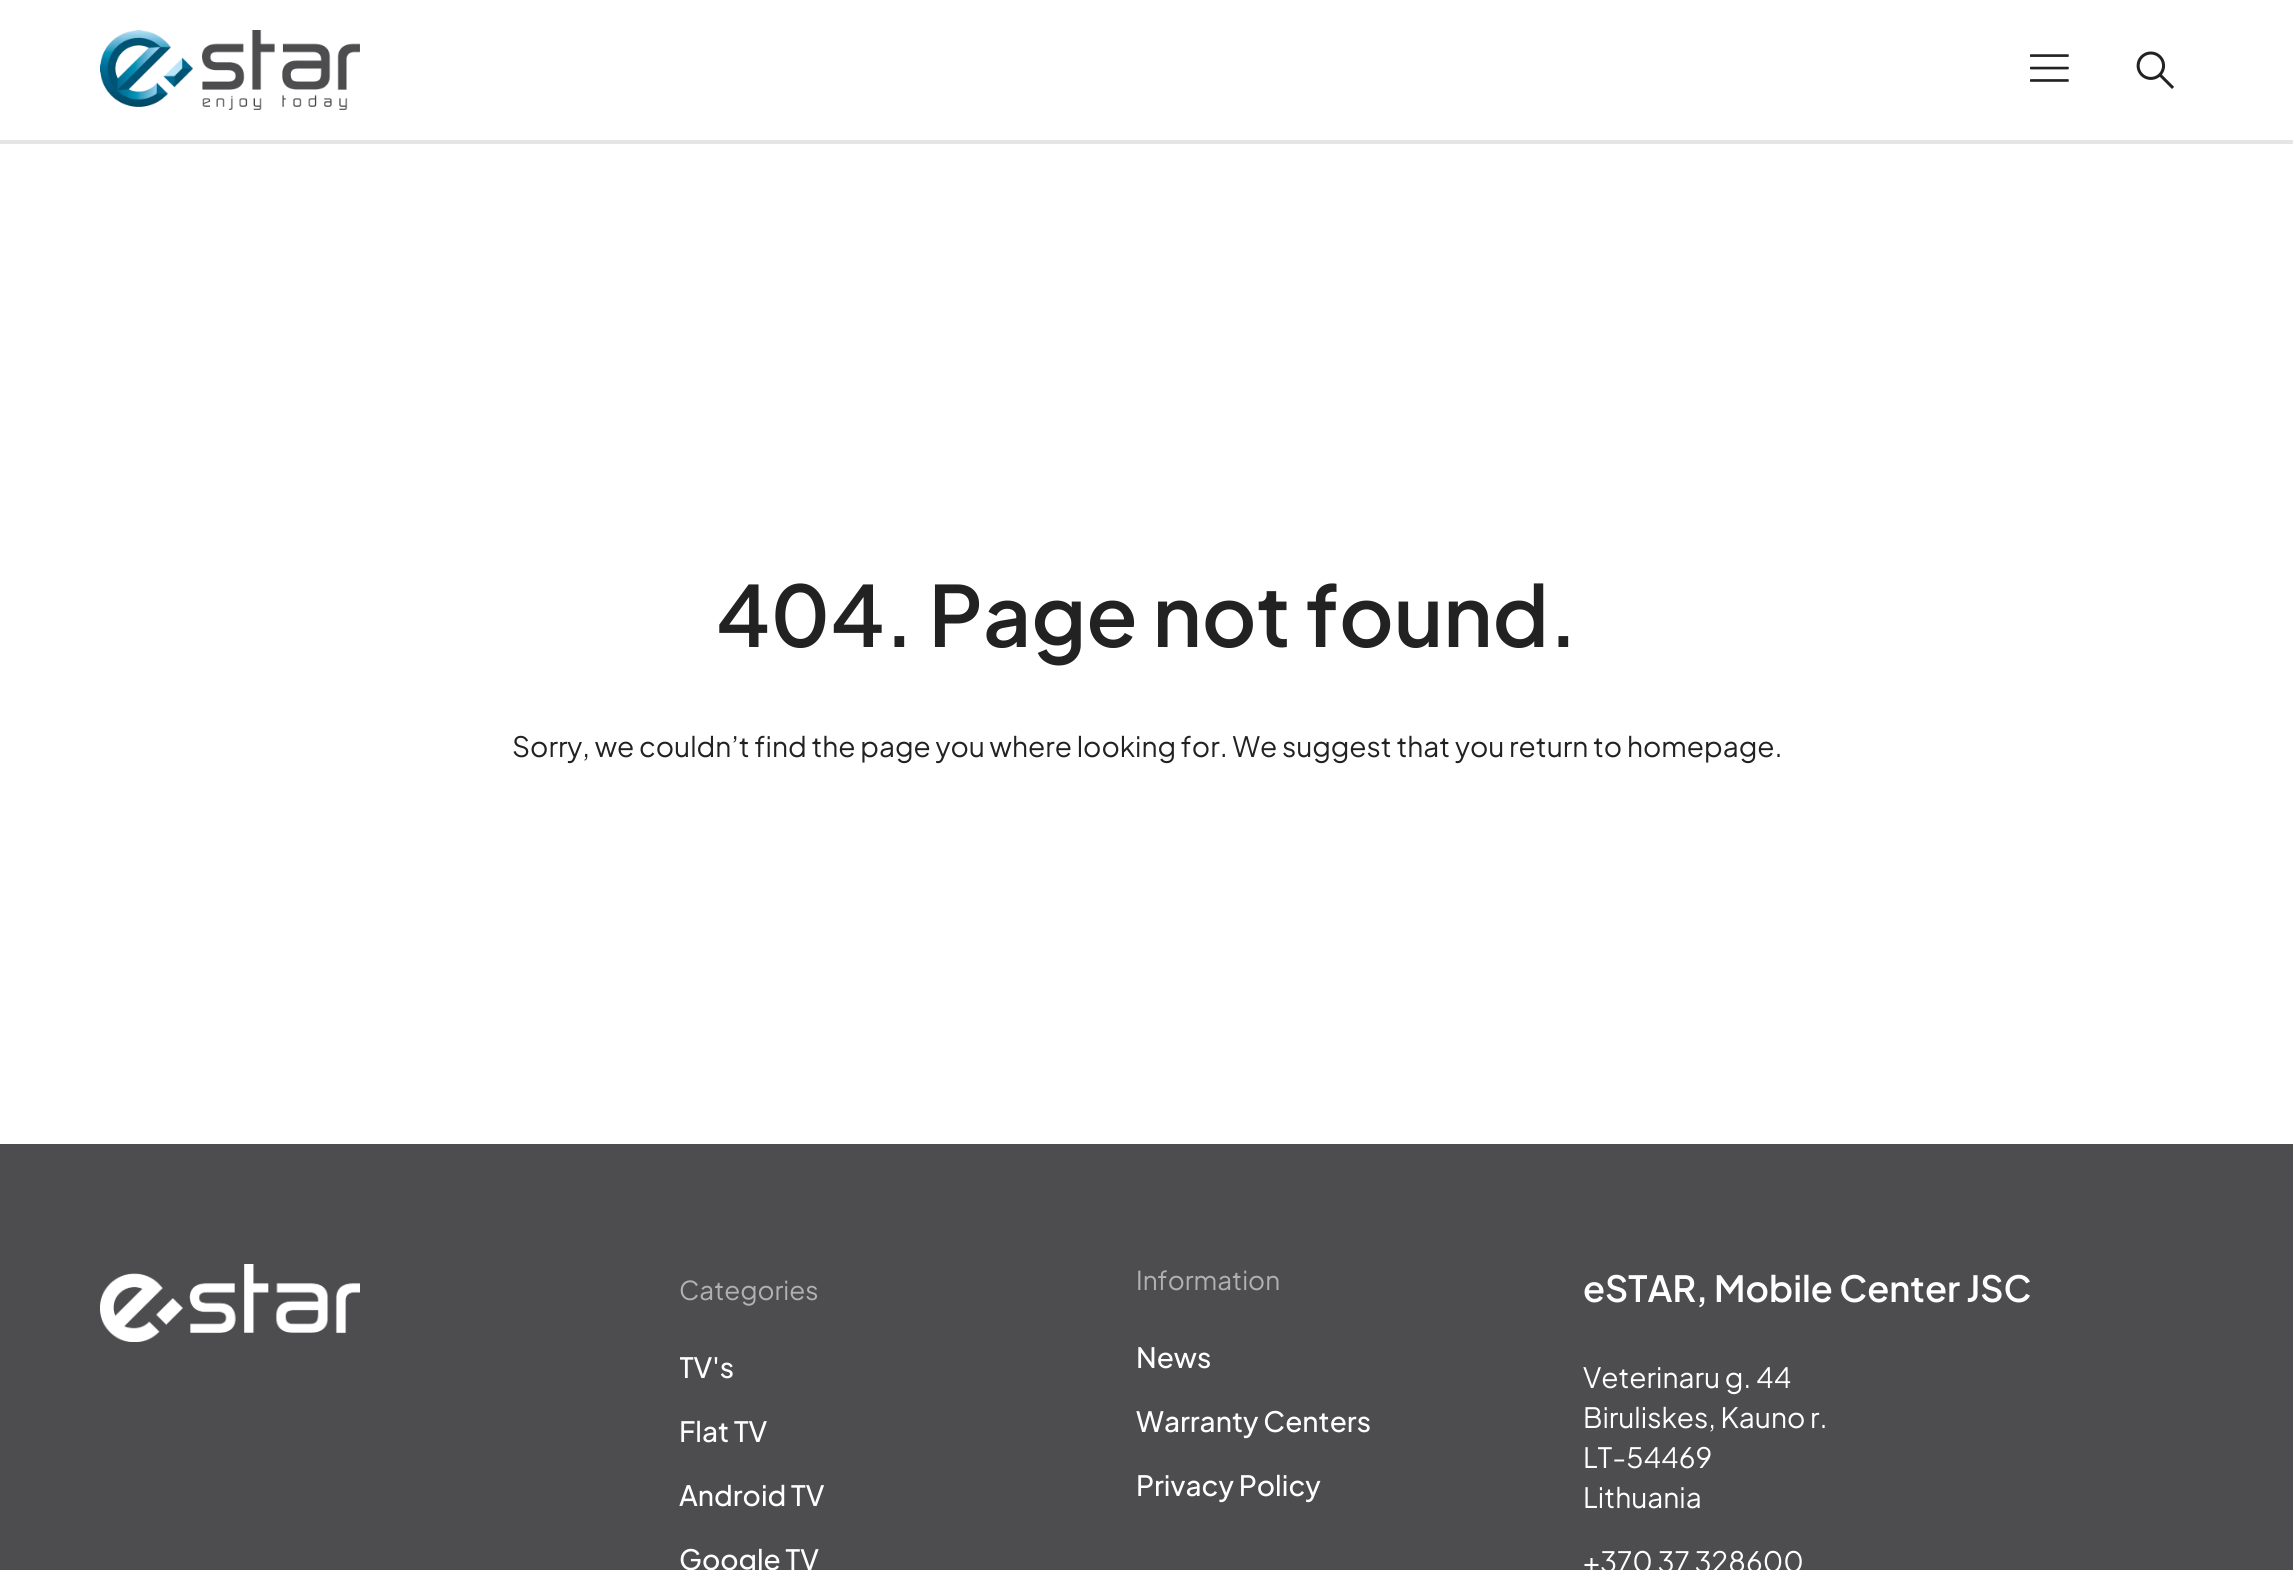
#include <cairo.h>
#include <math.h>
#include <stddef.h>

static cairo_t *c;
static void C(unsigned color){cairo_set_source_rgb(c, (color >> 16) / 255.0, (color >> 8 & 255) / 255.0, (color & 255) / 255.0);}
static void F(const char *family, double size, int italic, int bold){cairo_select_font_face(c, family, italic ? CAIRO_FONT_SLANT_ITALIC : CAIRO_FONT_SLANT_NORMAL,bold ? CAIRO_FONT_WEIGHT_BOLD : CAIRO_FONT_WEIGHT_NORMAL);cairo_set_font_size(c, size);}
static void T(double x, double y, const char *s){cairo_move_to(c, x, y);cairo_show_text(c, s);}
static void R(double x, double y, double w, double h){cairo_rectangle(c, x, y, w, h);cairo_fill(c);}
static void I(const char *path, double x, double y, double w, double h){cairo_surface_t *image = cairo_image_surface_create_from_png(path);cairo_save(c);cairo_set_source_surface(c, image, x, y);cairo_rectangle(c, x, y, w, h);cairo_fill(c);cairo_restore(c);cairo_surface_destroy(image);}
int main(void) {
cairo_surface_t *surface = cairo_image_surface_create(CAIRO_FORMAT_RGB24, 2293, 1570);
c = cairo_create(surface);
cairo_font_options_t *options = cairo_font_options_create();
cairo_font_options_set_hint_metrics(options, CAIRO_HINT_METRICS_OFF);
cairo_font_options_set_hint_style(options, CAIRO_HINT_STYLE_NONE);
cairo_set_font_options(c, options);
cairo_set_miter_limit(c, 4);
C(0xffffff);
cairo_paint(c);
I("1.png",100,30,260,80);
I("2.png",2030,54,39,28);
I("3.png",2136,51,39,38);
C(0xe5e5e5);
R(0,140,2293,4);
F("Plus Jakarta Sans SemiBold",84,0,0);
C(0x222222);
T(716,647,"404. Page not found.");
F("Plus Jakarta Sans",28,0,0);
T(512,757,"Sorry, we couldn’t find the page you where looking for. We suggest that you return to homepage.");
C(0x4d4c4f);
R(0,1144,2293,426);
I("4.png",100,1264,260,78);
F("Plus Jakarta Sans",26,0,0);
C(0xb1b1b1);
T(679,1300,"Categories");
cairo_save(c);
cairo_rectangle(c,680,1346,406,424);
cairo_clip(c);
F("Plus Jakarta Sans Medium",28,0,0);
C(0xffffff);
T(679,1378,"TV's");
cairo_restore(c);
F("Plus Jakarta Sans Medium",28,0,0);
C(0xffffff);
T(679,1442,"Flat TV");
T(679,1506,"Android TV");
T(679,1570,"Google TV");
F("Plus Jakarta Sans",26,0,0);
C(0xb1b1b1);
T(1136,1290,"Information");
F("Plus Jakarta Sans Medium",28,0,0);
C(0xffffff);
T(1136,1368,"News");
T(1136,1432,"Warranty Centers");
T(1136,1496,"Privacy Policy");
F("Plus Jakarta Sans SemiBold",36,0,0);
T(1583,1302,"eSTAR, Mobile Center JSC");
F("Plus Jakarta Sans",28,0,0);
T(1583,1388,"Veterinaru g. 44");
T(1583,1428,"Biruliskes, Kauno r.");
T(1583,1468,"LT-54469");
T(1583,1508,"Lithuania");
T(1583,1572,"+370 37 328600");
cairo_surface_write_to_png(surface, "o.png");
cairo_font_options_destroy(options);
cairo_destroy(c);
cairo_surface_destroy(surface);
return 0;
}
